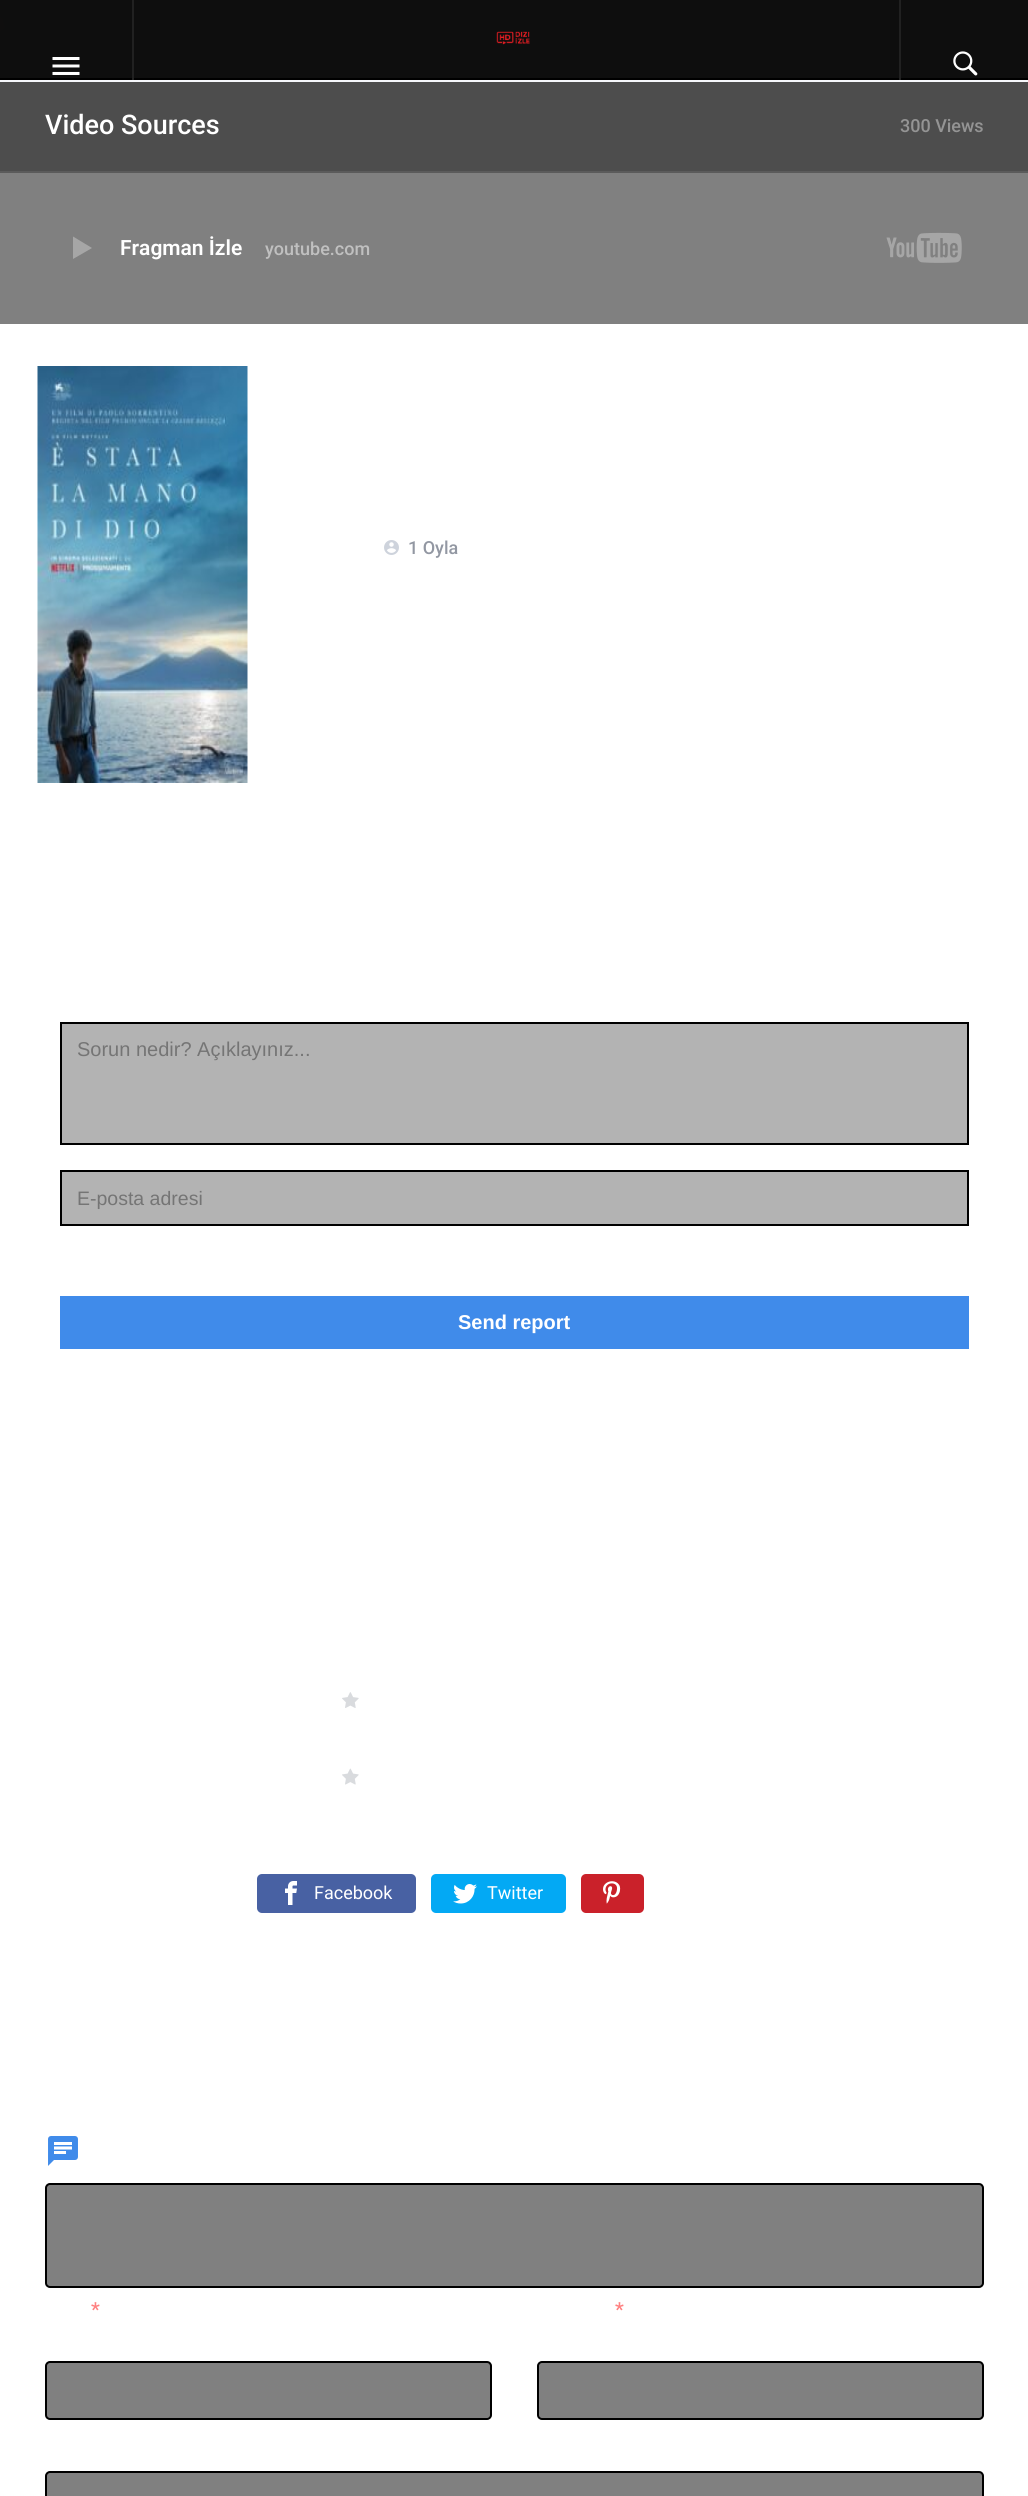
#include <cairo.h>
#include <math.h>
#include <stddef.h>

static cairo_t *c;
static void C(unsigned color){cairo_set_source_rgb(c, (color >> 16) / 255.0, (color >> 8 & 255) / 255.0, (color & 255) / 255.0);}
static void F(const char *family, double size, int italic, int bold){cairo_select_font_face(c, family, italic ? CAIRO_FONT_SLANT_ITALIC : CAIRO_FONT_SLANT_NORMAL,bold ? CAIRO_FONT_WEIGHT_BOLD : CAIRO_FONT_WEIGHT_NORMAL);cairo_set_font_size(c, size);}
static void T(double x, double y, const char *s){cairo_move_to(c, x, y);cairo_show_text(c, s);}
static void R(double x, double y, double w, double h){cairo_rectangle(c, x, y, w, h);cairo_fill(c);}
static void Q(double x, double y, double w, double h, double r){cairo_new_sub_path(c);cairo_arc(c, x + w - r, y + h - r, r, 0, M_PI / 2);cairo_arc(c, x + r, y + h - r, r, M_PI / 2, M_PI);cairo_arc(c, x + r, y + r, r, M_PI, 1.5 * M_PI);cairo_arc(c, x + w - r, y + r, r, 1.5 * M_PI, 2 * M_PI);cairo_close_path(c);}
static void I(const char *path, double x, double y, double w, double h){cairo_surface_t *image = cairo_image_surface_create_from_png(path);cairo_save(c);cairo_set_source_surface(c, image, x, y);cairo_rectangle(c, x, y, w, h);cairo_fill(c);cairo_restore(c);cairo_surface_destroy(image);}
int main(void) {
cairo_surface_t *surface = cairo_image_surface_create(CAIRO_FORMAT_RGB24, 1028, 2496);
c = cairo_create(surface);
cairo_font_options_t *options = cairo_font_options_create();
cairo_font_options_set_hint_metrics(options, CAIRO_HINT_METRICS_OFF);
cairo_font_options_set_hint_style(options, CAIRO_HINT_STYLE_NONE);
cairo_set_font_options(c, options);
cairo_set_miter_limit(c, 4);
C(0xffffff);
cairo_paint(c);
I("1.png",0,0,1028,78);
cairo_set_source_rgba(c,0.059,0.059,0.059,0.99);
R(0,0,1028,78);
C(0x000000);
R(0,78,1028,2);
C(0x212121);
R(132,0,2,80);
I("2.png",52,57,28,18);
I("3.png",496,31,34,14);
R(899,0,2,80);
I("4.png",953,51,25,25);
C(0xf5f7fa);
R(0,80,1028,2);
C(0x4d4d4d);
R(0,82,1028,89);
C(0x5b5b5b);
R(0,171,1028,2);
F("Roboto Medium",27,0,0);
C(0xffffff);
T(45,134,"Video Sources");
F("Roboto Medium",18,0,0);
C(0x949494);
T(900,132,"300 Views");
C(0x808080);
R(0,173,1028,151);
C(0xa6a6a6);
cairo_new_path(c);
cairo_move_to(c,73,236.5);
cairo_line_to(c,92,248);
cairo_line_to(c,73,259);
cairo_close_path(c);
cairo_fill(c);
F("Roboto SemiBold",21,0,0);
C(0xffffff);
T(120,255,"Fragman İzle");
F("Roboto Medium",18,0,0);
C(0xc0c0c0);
T(265,255,"youtube.com");
I("5.png",886,232,76,31);
I("6.png",37,366,211,417);
I("7.png",384,540,15,15);
C(0x9297a2);
T(408,554,"1 Oyla");
C(0xb3b3b3);
cairo_rectangle(c,61,1023,907,121);
cairo_fill_preserve(c);
C(0x000000);
cairo_stroke(c);
F("Liberation Sans",20,0,0);
C(0x757575);
T(77,1056,"Sorun nedir? Açıklayınız...");
C(0xb3b3b3);
cairo_rectangle(c,61,1171,907,54);
cairo_fill_preserve(c);
C(0x000000);
cairo_stroke(c);
F("Liberation Sans",19.5,0,0);
C(0x757575);
T(77,1205,"E-posta adresi");
C(0x408bea);
R(60,1296,909,53);
F("Liberation Sans",20,0,1);
C(0xffffff);
T(458,1329,"Send report");
I("8.png",342,1692,17,16);
I("9.png",342,1768,17,17);
C(0x4861a3);
Q(257,1874,159,39,5);
cairo_fill(c);
I("10.png",285,1881,12,24);
F("Roboto",18,0,0);
C(0xffffff);
T(314,1899,"Facebook");
C(0x03a9f4);
Q(431,1874,135,39,5);
cairo_fill(c);
I("11.png",453,1884,24,20);
C(0xffffff);
T(487,1899,"Twitter");
C(0xca212a);
Q(581,1874,63,39,5);
cairo_fill(c);
I("12.png",603,1881,18,23);
I("13.png",48,2136,30,30);
C(0x808080);
Q(46,2184,937,103,4);
cairo_fill_preserve(c);
C(0x000000);
cairo_stroke(c);
F("Roboto SemiBold",19.5,0,0);
C(0xff8181);
T(91,2316,"*");
C(0x808080);
Q(46,2362,445,57,4);
cairo_fill_preserve(c);
C(0x000000);
cairo_stroke(c);
C(0xff8181);
T(615,2316,"*");
C(0x808080);
Q(538,2362,445,57,4);
cairo_fill_preserve(c);
C(0x000000);
cairo_stroke(c);
C(0x808080);
Q(46,2472,937,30,4);
cairo_fill_preserve(c);
C(0x000000);
cairo_stroke(c);
cairo_surface_write_to_png(surface, "o.png");
cairo_font_options_destroy(options);
cairo_destroy(c);
cairo_surface_destroy(surface);
return 0;
}
